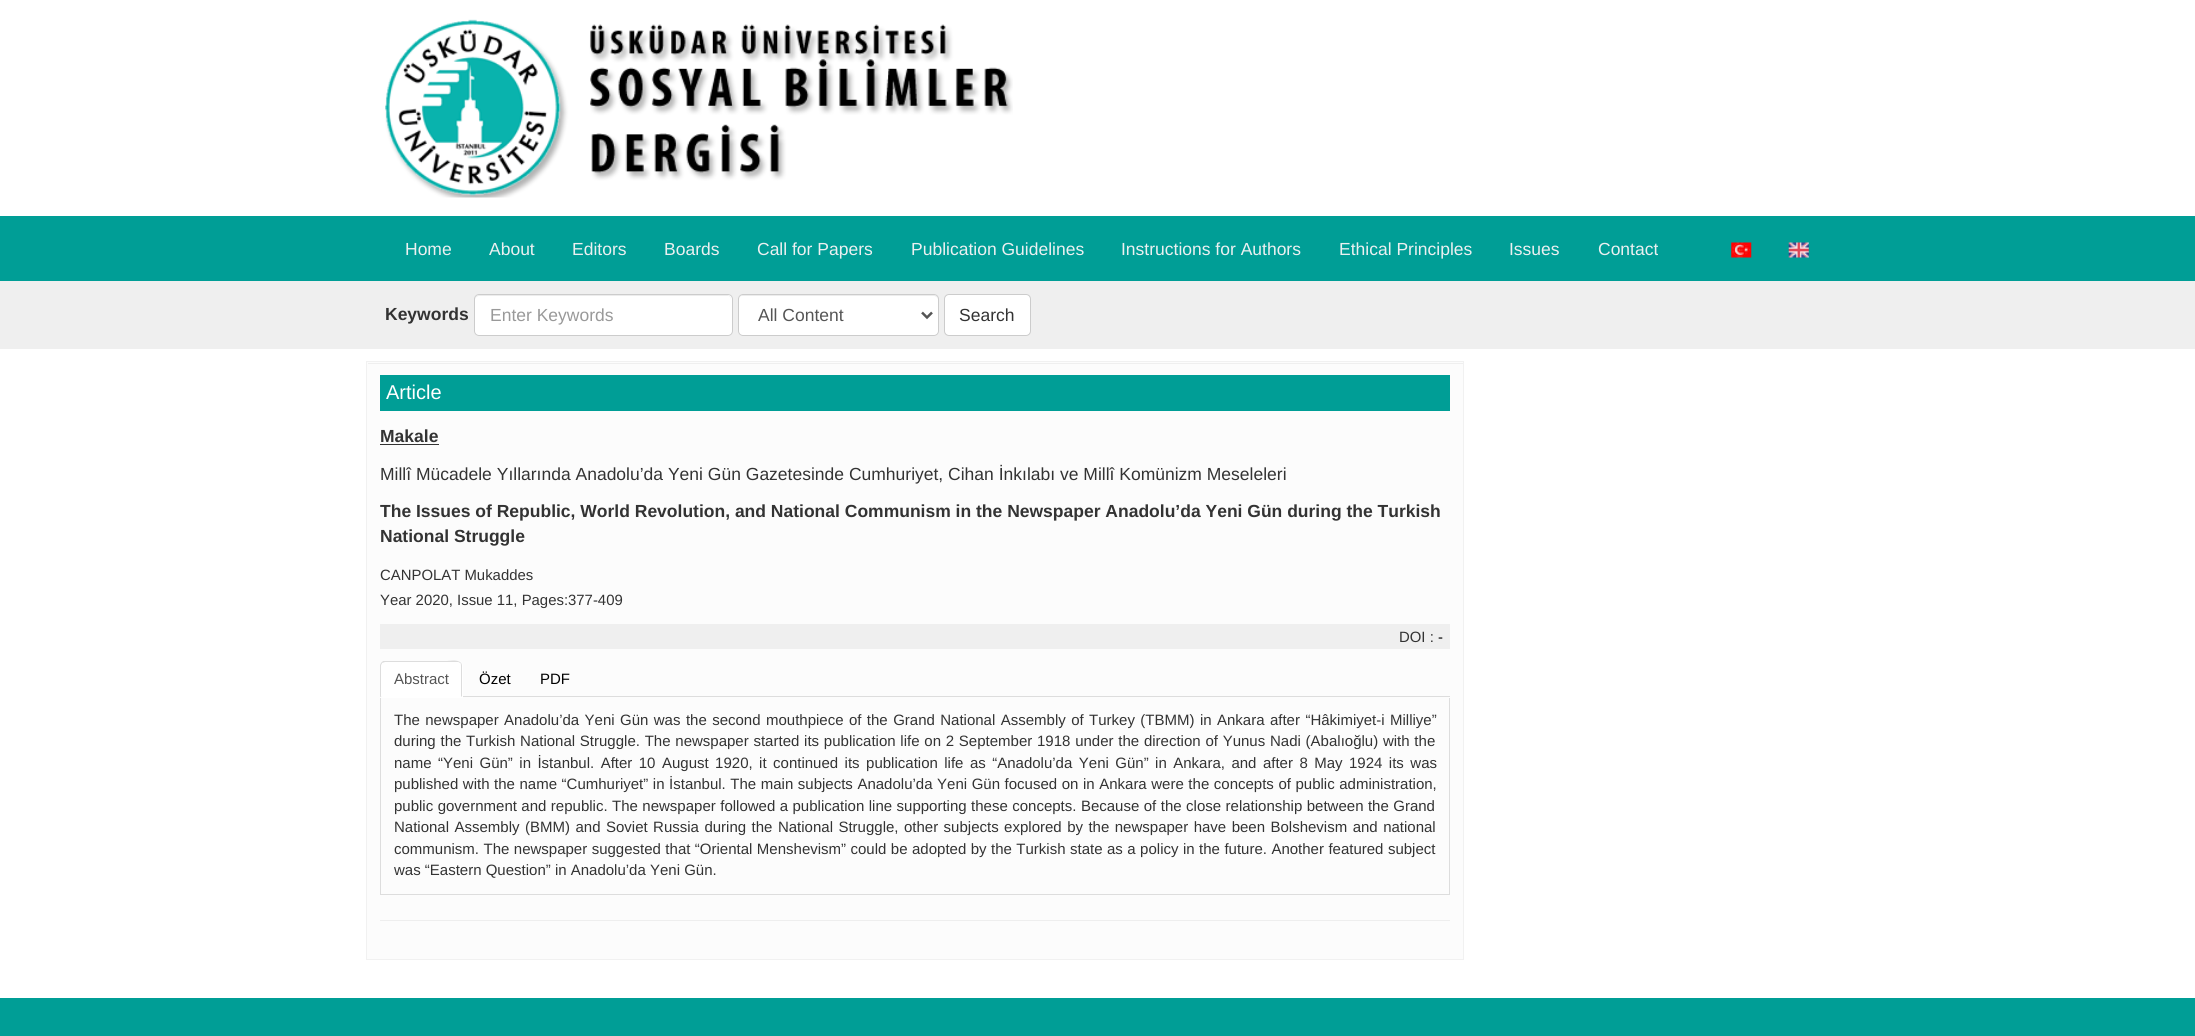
#include <cairo.h>
#include <math.h>
#include <stddef.h>

static cairo_t *c;
static void C(unsigned color){cairo_set_source_rgb(c, (color >> 16) / 255.0, (color >> 8 & 255) / 255.0, (color & 255) / 255.0);}
static void F(const char *family, double size, int italic, int bold){cairo_select_font_face(c, family, italic ? CAIRO_FONT_SLANT_ITALIC : CAIRO_FONT_SLANT_NORMAL,bold ? CAIRO_FONT_WEIGHT_BOLD : CAIRO_FONT_WEIGHT_NORMAL);cairo_set_font_size(c, size);}
static void T(double x, double y, const char *s){cairo_move_to(c, x, y);cairo_show_text(c, s);}
static void L(double x, double y, const char *s, double letter, double word){cairo_move_to(c, x, y);while (*s) {char ch[5] = {0};int n = 0;do ch[n++] = *s++; while ((*s & 0xC0) == 0x80);cairo_show_text(c, ch);cairo_rel_move_to(c, letter + word * (*ch == ' '), 0);}}
static void R(double x, double y, double w, double h){cairo_rectangle(c, x, y, w, h);cairo_fill(c);}
static void Q(double x, double y, double w, double h, double r){cairo_new_sub_path(c);cairo_arc(c, x + w - r, y + h - r, r, 0, M_PI / 2);cairo_arc(c, x + r, y + h - r, r, M_PI / 2, M_PI);cairo_arc(c, x + r, y + r, r, M_PI, 1.5 * M_PI);cairo_arc(c, x + w - r, y + r, r, 1.5 * M_PI, 2 * M_PI);cairo_close_path(c);}
static void I(const char *path, double x, double y, double w, double h){cairo_surface_t *image = cairo_image_surface_create_from_png(path);cairo_save(c);cairo_set_source_surface(c, image, x, y);cairo_rectangle(c, x, y, w, h);cairo_fill(c);cairo_restore(c);cairo_surface_destroy(image);}
int main(void) {
cairo_surface_t *surface = cairo_image_surface_create(CAIRO_FORMAT_RGB24, 2195, 1036);
c = cairo_create(surface);
cairo_font_options_t *options = cairo_font_options_create();
cairo_font_options_set_hint_metrics(options, CAIRO_HINT_METRICS_OFF);
cairo_font_options_set_hint_style(options, CAIRO_HINT_STYLE_NONE);
cairo_set_font_options(c, options);
cairo_set_miter_limit(c, 4);
C(0xffffff);
cairo_paint(c);
I("1.png",385,19,628,179);
C(0x009e96);
R(0,216,2195,65);
F("Liberation Sans",17.5,0,0);
C(0xecf0f1);
T(405,255,"Home");
T(489,255,"About");
T(572,255,"Editors");
T(664,255,"Boards");
T(757,255,"Call for Papers");
T(911,255,"Publication Guidelines");
T(1121,255,"Instructions for Authors");
T(1339,255,"Ethical Principles");
T(1509,255,"Issues");
T(1598,255,"Contact");
I("2.png",1731,242,21,16);
I("3.png",1788,242,21,16);
C(0xefefef);
R(0,281,2195,68);
F("Liberation Sans",17.5,0,1);
C(0x333333);
T(385,320,"Keywords");
C(0xffffff);
Q(474,294,259,42,5);
cairo_fill(c);
C(0xececec);
cairo_new_path(c);
cairo_move_to(c,479,296);
cairo_line_to(c,728,296);
cairo_curve_to(c,730,296,731,298,731,300);
cairo_line_to(c,731,299);
cairo_curve_to(c,731,297,729,295,727,295);
cairo_line_to(c,479,295);
cairo_curve_to(c,477,295,475,297,475,299);
cairo_line_to(c,475,300);
cairo_curve_to(c,475,298,477,296,479,296);
cairo_close_path(c);
cairo_fill(c);
Q(474.5,294.5,258,41,4.5);
C(0xcccccc);
cairo_set_line_width(c,1);
cairo_stroke(c);
F("Liberation Sans",17.5,0,0);
C(0x999999);
T(490,321,"Enter Keywords");
C(0xffffff);
Q(738,294,201,42,5);
cairo_fill(c);
C(0xececec);
cairo_new_path(c);
cairo_move_to(c,742,296);
cairo_line_to(c,934,296);
cairo_curve_to(c,936,296,938,298,938,300);
cairo_line_to(c,938,299);
cairo_curve_to(c,938,297,936,295,934,295);
cairo_line_to(c,743,295);
cairo_curve_to(c,741,295,739,297,739,299);
cairo_line_to(c,739,300);
cairo_curve_to(c,739,298,740,296,742,296);
cairo_close_path(c);
cairo_fill(c);
Q(738.5,294.5,200,41,4.5);
C(0xcccccc);
cairo_stroke(c);
cairo_new_path(c);
cairo_move_to(c,922,312.5);
cairo_line_to(c,927,317.5);
cairo_line_to(c,932,312.5);
C(0x555555);
cairo_set_line_width(c,2.5);
cairo_stroke(c);
T(758,321,"All Content");
C(0xffffff);
Q(944.5,294.5,86,41,4.5);
cairo_fill_preserve(c);
C(0xcccccc);
cairo_set_line_width(c,1);
cairo_stroke(c);
C(0x333333);
T(959,321,"Search");
C(0xfcfcfc);
R(367,362,1096,597);
C(0xefefef);
R(368,363,1095,1);
cairo_rectangle(c,366.5,361.5,1097,598);
C(0xf1f1f1);
cairo_stroke(c);
C(0x009e96);
R(380,375,1070,36);
F("Liberation Sans",20,0,0);
C(0xffffff);
T(386,399,"Article");
F("Liberation Sans",17.5,0,1);
C(0x333333);
T(380,442,"Makale");
R(380,444,59,1);
F("Liberation Sans",17.5,0,0);
T(380,480,"Millî Mücadele Yıllarında Anadolu’da Yeni Gün Gazetesinde Cumhuriyet, Cihan İnkılabı ve Millî Komünizm Meseleleri");
F("Liberation Sans",17.5,0,1);
T(380,517,"The Issues of Republic, World Revolution, and National Communism in the Newspaper Anadolu’da Yeni Gün during the Turkish");
T(380,542,"National Struggle");
F("Liberation Sans",14.9,0,0);
T(380,580,"CANPOLAT Mukaddes");
T(380,605,"Year 2020, Issue 11, Pages:377-409");
C(0xefefef);
R(380,624,1070,25);
C(0x333333);
T(1399,642,"DOI :");
C(0x000000);
T(1438,642,"-");
C(0xdddddd);
R(463,696,987,1);
C(0xffffff);
cairo_new_path(c);
cairo_move_to(c,385,661);
cairo_line_to(c,458,661);
cairo_curve_to(c,461,661,463,663,463,666);
cairo_line_to(c,463,698);
cairo_line_to(c,380,698);
cairo_line_to(c,380,666);
cairo_curve_to(c,380,663,382,661,385,661);
cairo_close_path(c);
cairo_fill(c);
C(0xdddddd);
cairo_new_path(c);
cairo_move_to(c,385,662);
cairo_line_to(c,382,663);
cairo_line_to(c,381,663);
cairo_line_to(c,383,661);
cairo_line_to(c,447,661);
cairo_curve_to(c,449,661,458,659,461,663);
cairo_line_to(c,460,663);
cairo_curve_to(c,460,663,459,662,458,662);
cairo_close_path(c);
cairo_fill(c);
cairo_new_path(c);
cairo_move_to(c,461,662.5);
cairo_curve_to(c,461.5,663.5,462,664.5,462,666);
cairo_line_to(c,462,697);
cairo_line_to(c,461,696);
cairo_line_to(c,461,666);
cairo_curve_to(c,461,665,461,664,460.5,663.5);
cairo_close_path(c);
cairo_fill(c);
cairo_new_path(c);
cairo_move_to(c,380,697.5);
cairo_line_to(c,381.5,696);
cairo_line_to(c,381,696);
cairo_line_to(c,381,666);
cairo_curve_to(c,381,665,381.5,664,382,663.5);
cairo_line_to(c,381.5,662.5);
cairo_curve_to(c,380.5,663.5,380,664.5,380,666);
cairo_close_path(c);
cairo_fill(c);
F("Liberation Sans",15,0,0);
C(0x555555);
T(394,684,"Abstract");
C(0x000000);
T(479,684,"Özet");
T(540,684,"PDF");
C(0xdddddd);
R(1449,698,1,197);
R(380,894,1070,1);
R(380,698,1,197);
C(0x333333);
L(394,725,"The newspaper Anadolu’da Yeni Gün was the second mouthpiece of the Grand National Assembly of Turkey (TBMM) in Ankara after “Hâkimiyet-i Milliye”",0,1.25);
L(394,746,"during the Turkish National Struggle. The newspaper started its publication life on 2 September 1918 under the direction of Yunus Nadi (Abalıoğlu) with the",0,.6);
L(394,768,"name “Yeni Gün” in İstanbul. After 10 August 1920, it continued its publication life as “Anadolu’da Yeni Gün” in Ankara, and after 8 May 1924 its was",0,2.3);
L(394,789,"published with the name “Cumhuriyet” in İstanbul. The main subjects Anadolu’da Yeni Gün focused on in Ankara were the concepts of public administration,",0,.4);
L(394,811,"public government and republic. The newspaper followed a publication line supporting these concepts. Because of the close relationship between the Grand",0,.3);
L(394,832,"National Assembly (BMM) and Soviet Russia during the National Struggle, other subjects explored by the newspaper have been Bolshevism and national",0,1.3);
L(394,854,"communism. The newspaper suggested that “Oriental Menshevism” could be adopted by the Turkish state as a policy in the future. Another featured subject",0,.3);
T(394,875,"was “Eastern Question” in Anadolu’da Yeni Gün.");
C(0xeeeeee);
R(380,920,1070,1);
C(0x009e96);
R(0,998,2195,38);
cairo_surface_write_to_png(surface, "o.png");
cairo_font_options_destroy(options);
cairo_destroy(c);
cairo_surface_destroy(surface);
return 0;
}
